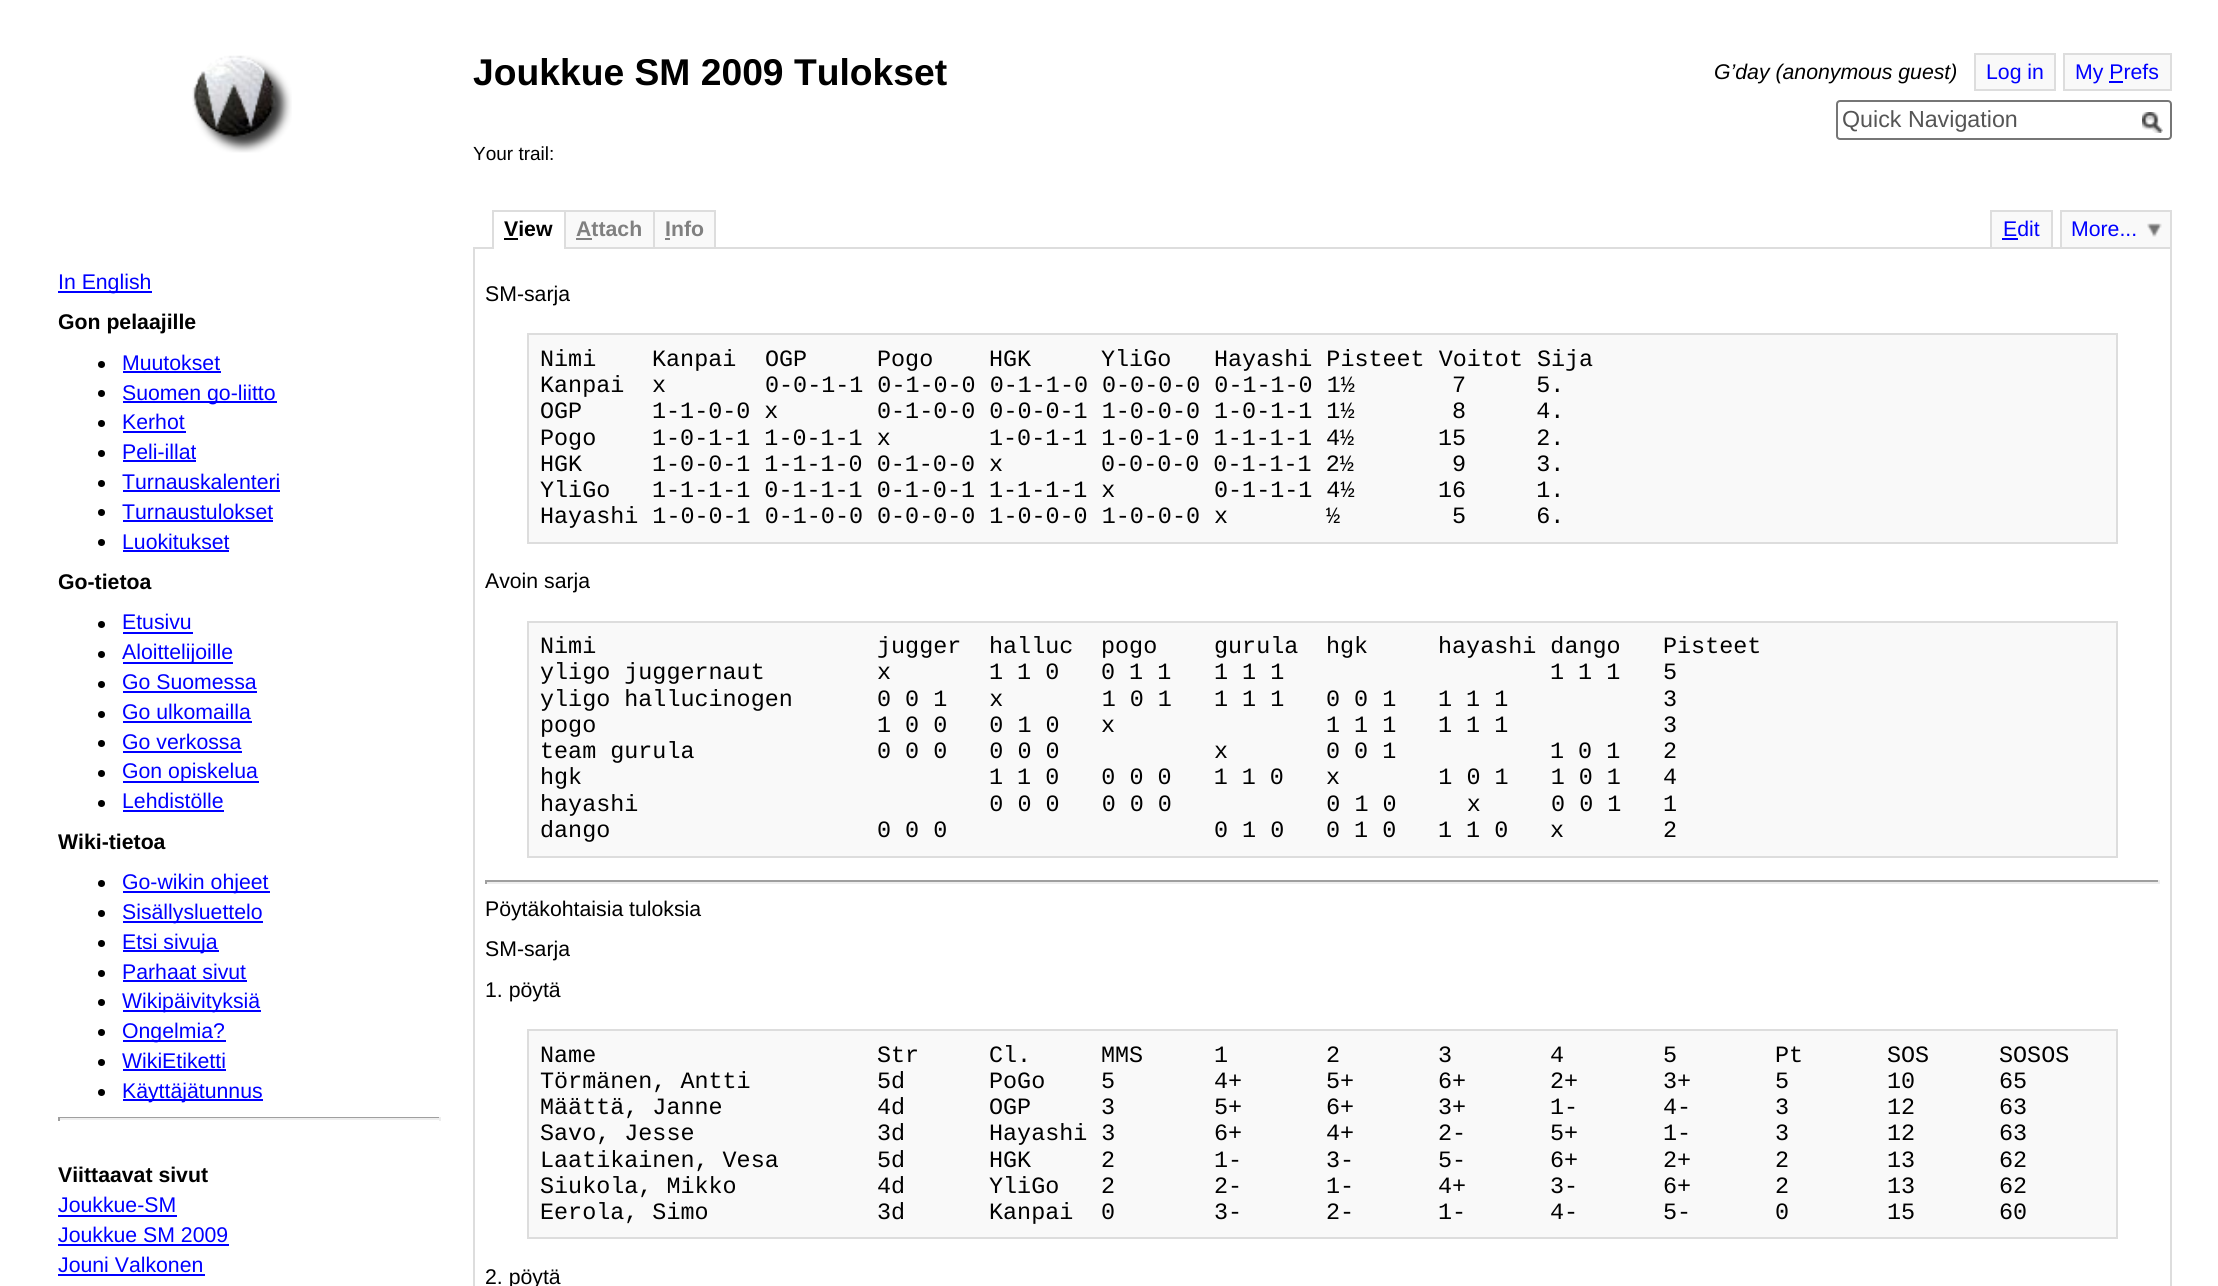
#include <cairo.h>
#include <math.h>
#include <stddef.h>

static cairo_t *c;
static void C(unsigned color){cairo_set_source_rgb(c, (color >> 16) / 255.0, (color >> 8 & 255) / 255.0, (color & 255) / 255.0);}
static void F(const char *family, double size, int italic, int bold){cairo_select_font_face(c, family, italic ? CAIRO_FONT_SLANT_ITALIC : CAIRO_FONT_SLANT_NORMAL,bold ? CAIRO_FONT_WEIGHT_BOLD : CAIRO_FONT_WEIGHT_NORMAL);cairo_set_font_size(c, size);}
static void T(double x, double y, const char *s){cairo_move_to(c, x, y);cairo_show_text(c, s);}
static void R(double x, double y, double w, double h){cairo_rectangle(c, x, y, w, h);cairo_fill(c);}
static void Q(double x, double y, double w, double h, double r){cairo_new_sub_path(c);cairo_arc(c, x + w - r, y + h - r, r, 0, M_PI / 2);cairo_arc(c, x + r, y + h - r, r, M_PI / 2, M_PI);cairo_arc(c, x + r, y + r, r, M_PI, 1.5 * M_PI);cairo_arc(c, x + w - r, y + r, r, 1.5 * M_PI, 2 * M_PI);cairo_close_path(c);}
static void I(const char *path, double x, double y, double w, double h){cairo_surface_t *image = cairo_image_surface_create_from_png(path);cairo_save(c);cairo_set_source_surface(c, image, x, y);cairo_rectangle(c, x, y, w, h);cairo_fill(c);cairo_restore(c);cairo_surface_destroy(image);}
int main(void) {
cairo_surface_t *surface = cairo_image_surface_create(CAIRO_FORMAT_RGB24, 2218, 1286);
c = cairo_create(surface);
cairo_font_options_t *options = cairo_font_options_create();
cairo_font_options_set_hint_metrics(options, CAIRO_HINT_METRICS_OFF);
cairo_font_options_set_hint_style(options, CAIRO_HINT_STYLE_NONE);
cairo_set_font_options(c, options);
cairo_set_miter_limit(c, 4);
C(0xffffff);
cairo_paint(c);
I("1.png",192,55,100,98);
F("Liberation Sans",37.25,0,1);
C(0x000000);
T(473,85,"Joukkue SM 2009 Tulokset");
F("Liberation Sans",21.25,1,0);
T(1714,79,"G’day (anonymous guest)");
C(0xf9f9f9);
cairo_rectangle(c,1975,54,80,36);
cairo_fill_preserve(c);
C(0xdddddd);
cairo_stroke(c);
F("Liberation Sans",21.25,0,0);
C(0x0000ff);
T(1986,79,"Log in");
C(0xf9f9f9);
R(2065,55,105,34);
C(0x0000ff);
T(2075,79,"My Prefs");
C(0xdddddd);
R(2063,53,109,2);
R(2063,89,60,2);
R(2063,53,2,38);
R(2170,53,2,38);
R(2123,89,49,2);
C(0x0000ff);
R(2109,81,14,2);
Q(1837,101,334,38,3);
C(0x767676);
cairo_stroke(c);
F("Liberation Sans",23.25,0,0);
C(0x555555);
T(1842,127,"Quick Navigation");
I("2.png",2142,112,21,21);
F("Liberation Sans",19,0,0);
C(0x000000);
T(473,160,"Your trail:");
C(0x0000ff);
R(58,291,94,2);
F("Liberation Sans",21.25,0,0);
T(58,289,"In English");
F("Liberation Sans",21.25,0,1);
C(0x000000);
T(58,329,"Gon pelaajille");
cairo_new_path(c);
cairo_arc(c,101.5,364.5,3.5,0,2 * M_PI);
cairo_fill(c);
F("Liberation Sans",21.25,0,0);
C(0x0000ff);
T(122,370,"Muutokset");
R(123,371,98,2);
C(0x000000);
cairo_new_path(c);
cairo_arc(c,101.5,393.5,3.5,0,2 * M_PI);
cairo_fill(c);
C(0x0000ff);
R(123,401,154,2);
T(122,400,"Suomen go-liitto");
C(0x000000);
cairo_new_path(c);
cairo_arc(c,101.5,423.5,3.5,0,2 * M_PI);
cairo_fill(c);
C(0x0000ff);
T(122,429,"Kerhot");
R(123,431,63,2);
C(0x000000);
cairo_new_path(c);
cairo_arc(c,101.5,453.5,3.5,0,2 * M_PI);
cairo_fill(c);
C(0x0000ff);
T(122,459,"Peli-illat");
R(123,460,73,2);
C(0x000000);
cairo_new_path(c);
cairo_arc(c,101.5,483.5,3.5,0,2 * M_PI);
cairo_fill(c);
C(0x0000ff);
T(122,489,"Turnauskalenteri");
R(123,490,157,2);
C(0x000000);
cairo_new_path(c);
cairo_arc(c,101.5,512.5,3.5,0,2 * M_PI);
cairo_fill(c);
C(0x0000ff);
T(122,519,"Turnaustulokset");
R(123,520,150,2);
C(0x000000);
cairo_new_path(c);
cairo_arc(c,101.5,542.5,3.5,0,2 * M_PI);
cairo_fill(c);
C(0x0000ff);
T(122,549,"Luokitukset");
R(123,550,106,2);
F("Liberation Sans",21.25,0,1);
C(0x000000);
T(58,589,"Go-tietoa");
cairo_new_path(c);
cairo_arc(c,101.5,624.5,3.5,0,2 * M_PI);
cairo_fill(c);
F("Liberation Sans",21.25,0,0);
C(0x0000ff);
T(122,629,"Etusivu");
R(123,632,70,2);
C(0x000000);
cairo_new_path(c);
cairo_arc(c,101.5,654.5,3.5,0,2 * M_PI);
cairo_fill(c);
C(0x0000ff);
R(123,662,110,2);
T(122,659,"Aloittelijoille");
C(0x000000);
cairo_new_path(c);
cairo_arc(c,101.5,684.5,3.5,0,2 * M_PI);
cairo_fill(c);
C(0x0000ff);
T(122,689,"Go Suomessa");
R(123,691,134,2);
C(0x000000);
cairo_new_path(c);
cairo_arc(c,101.5,714.5,3.5,0,2 * M_PI);
cairo_fill(c);
C(0x0000ff);
T(122,719,"Go ulkomailla");
R(123,721,129,2);
C(0x000000);
cairo_new_path(c);
cairo_arc(c,101.5,743.5,3.5,0,2 * M_PI);
cairo_fill(c);
C(0x0000ff);
T(122,749,"Go verkossa");
R(123,751,119,2);
C(0x000000);
cairo_new_path(c);
cairo_arc(c,101.5,773.5,3.5,0,2 * M_PI);
cairo_fill(c);
C(0x0000ff);
R(123,781,136,2);
T(122,778,"Gon opiskelua");
C(0x000000);
cairo_new_path(c);
cairo_arc(c,101.5,803.5,3.5,0,2 * M_PI);
cairo_fill(c);
C(0x0000ff);
T(122,808,"Lehdistölle");
R(123,810,101,2);
F("Liberation Sans",21.25,0,1);
C(0x000000);
T(58,849,"Wiki-tietoa");
cairo_new_path(c);
cairo_arc(c,101.5,883.5,3.5,0,2 * M_PI);
cairo_fill(c);
C(0x0000ff);
R(123,891,147,2);
F("Liberation Sans",21.25,0,0);
T(122,889,"Go-wikin ohjeet");
C(0x000000);
cairo_new_path(c);
cairo_arc(c,101.5,913.5,3.5,0,2 * M_PI);
cairo_fill(c);
C(0x0000ff);
R(123,921,140,2);
T(122,919,"Sisällysluettelo");
C(0x000000);
cairo_new_path(c);
cairo_arc(c,101.5,943.5,3.5,0,2 * M_PI);
cairo_fill(c);
C(0x0000ff);
R(123,950,96,2);
T(122,949,"Etsi sivuja");
C(0x000000);
cairo_new_path(c);
cairo_arc(c,101.5,973.5,3.5,0,2 * M_PI);
cairo_fill(c);
C(0x0000ff);
T(122,979,"Parhaat sivut");
R(123,980,124,2);
C(0x000000);
cairo_new_path(c);
cairo_arc(c,101.5,1002.5,3.5,0,2 * M_PI);
cairo_fill(c);
C(0x0000ff);
R(123,1010,138,2);
T(122,1008,"Wikipäivityksiä");
C(0x000000);
cairo_new_path(c);
cairo_arc(c,101.5,1032.5,3.5,0,2 * M_PI);
cairo_fill(c);
C(0x0000ff);
R(123,1040,103,2);
T(122,1038,"Ongelmia?");
C(0x000000);
cairo_new_path(c);
cairo_arc(c,101.5,1062.5,3.5,0,2 * M_PI);
cairo_fill(c);
C(0x0000ff);
T(122,1068,"WikiEtiketti");
R(123,1069,103,2);
C(0x000000);
cairo_new_path(c);
cairo_arc(c,101.5,1092.5,3.5,0,2 * M_PI);
cairo_fill(c);
C(0x0000ff);
R(123,1099,140,2);
T(122,1098,"Käyttäjätunnus");
C(0x9f9f9f);
R(58,1117,383,1);
C(0xeeeeee);
R(439,1117,2,4);
R(58,1118,383,2);
C(0x9f9f9f);
R(58,1117,2,4);
F("Liberation Sans",21.25,0,1);
C(0x000000);
T(58,1182,"Viittaavat sivut");
F("Liberation Sans",21.25,0,0);
C(0x0000ff);
T(58,1212,"Joukkue-SM");
R(58,1215,119,2);
T(58,1242,"Joukkue SM 2009");
R(58,1244,171,2);
T(58,1272,"Jouni Valkonen");
R(58,1274,147,2);
C(0xdddddd);
R(492,210,73,2);
cairo_rectangle(c,474,248,1697,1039);
cairo_stroke(c);
C(0xffffff);
R(492,247,73,2);
C(0xdddddd);
R(492,210,2,39);
F("Liberation Sans",21.25,0,1);
C(0x000000);
T(504,236,"View");
R(504,238,14,2);
C(0xf9f9f9);
cairo_rectangle(c,565,211,89,37);
cairo_fill_preserve(c);
C(0xdddddd);
cairo_stroke(c);
C(0x808080);
T(576,236,"Attach");
R(576,238,16,2);
C(0xf9f9f9);
cairo_rectangle(c,654,211,61,37);
cairo_fill_preserve(c);
C(0xdddddd);
cairo_stroke(c);
C(0x808080);
T(665,236,"Info");
R(665,238,5,2);
C(0xf9f9f9);
R(1992,212,59,35);
C(0xdddddd);
R(1990,210,63,2);
R(2051,210,2,37);
R(1990,210,2,37);
F("Liberation Sans",21.25,0,0);
C(0x0000ff);
T(2003,236,"Edit");
R(2002,238,16,2);
C(0xf9f9f9);
R(2062,212,108,35);
I("3.png",2147,223,15,14);
C(0xdddddd);
R(2060,210,112,2);
R(2170,210,2,37);
R(2060,210,2,37);
C(0x0000ff);
T(2071,236,"More...");
C(0x000000);
T(485,301,"SM-sarja");
C(0xf9f9f9);
cairo_rectangle(c,528,334,1589,209);
cairo_fill_preserve(c);
C(0xdddddd);
cairo_stroke(c);
F("Liberation Mono",23.4,0,0);
C(0x000000);
T(540,366,"Nimi");
T(652,366,"Kanpai");
T(765,366,"OGP");
T(877,366,"Pogo");
T(989,366,"HGK");
T(1101,366,"YliGo");
T(1214,366,"Hayashi Pisteet Voitot Sija");
T(540,392,"Kanpai");
T(652,392,"x");
T(765,392,"0-0-1-1 0-1-0-0 0-1-1-0 0-0-0-0 0-1-1-0 1½");
T(1452,392,"7     5.");
T(540,418,"OGP");
T(652,418,"1-1-0-0 x");
T(877,418,"0-1-0-0 0-0-0-1 1-0-0-0 1-0-1-1 1½");
T(1452,418,"8     4.");
T(540,445,"Pogo");
T(652,445,"1-0-1-1 1-0-1-1 x");
T(989,445,"1-0-1-1 1-0-1-0 1-1-1-1 4½");
T(1438,445,"15     2.");
T(540,471,"HGK");
T(652,471,"1-0-0-1 1-1-1-0 0-1-0-0 x");
T(1101,471,"0-0-0-0 0-1-1-1 2½");
T(1452,471,"9     3.");
T(540,497,"YliGo");
T(652,497,"1-1-1-1 0-1-1-1 0-1-0-1 1-1-1-1 x");
T(1214,497,"0-1-1-1 4½");
T(1438,497,"16     1.");
T(540,523,"Hayashi 1-0-0-1 0-1-0-0 0-0-0-0 1-0-0-0 1-0-0-0 x");
T(1326,523,"½");
T(1452,523,"5     6.");
F("Liberation Sans",21.25,0,0);
T(485,588,"Avoin sarja");
C(0xf9f9f9);
cairo_rectangle(c,528,622,1589,235);
cairo_fill_preserve(c);
C(0xdddddd);
cairo_stroke(c);
F("Liberation Mono",23.4,0,0);
C(0x000000);
T(540,653,"Nimi");
T(877,653,"jugger");
T(989,653,"halluc");
T(1101,653,"pogo");
T(1214,653,"gurula");
T(1326,653,"hgk");
T(1438,653,"hayashi dango");
T(1663,653,"Pisteet");
T(540,679,"yligo juggernaut");
T(877,679,"x");
T(989,679,"1 1 0");
T(1101,679,"0 1 1");
T(1214,679,"1 1 1");
T(1550,679,"1 1 1");
T(1663,679,"5");
T(540,706,"yligo hallucinogen");
T(877,706,"0 0 1   x       1 0 1");
T(1214,706,"1 1 1");
T(1326,706,"0 0 1");
T(1438,706,"1 1 1");
T(1663,706,"3");
T(540,732,"pogo");
T(877,732,"1 0 0   0 1 0");
T(1101,732,"x");
T(1326,732,"1 1 1");
T(1438,732,"1 1 1");
T(1663,732,"3");
T(540,758,"team gurula");
T(877,758,"0 0 0   0 0 0");
T(1214,758,"x");
T(1326,758,"0 0 1");
T(1550,758,"1 0 1");
T(1663,758,"2");
T(540,784,"hgk");
T(989,784,"1 1 0   0 0 0   1 1 0");
T(1326,784,"x       1 0 1   1 0 1");
T(1663,784,"4");
T(540,811,"hayashi                         0 0 0   0 0 0           0 1 0     x     0 0 1");
T(1663,811,"1");
T(540,837,"dango");
T(877,837,"0 0 0");
T(1214,837,"0 1 0");
T(1326,837,"0 1 0");
T(1438,837,"1 1 0");
T(1550,837,"x");
T(1663,837,"2");
C(0x9f9f9f);
R(485,880,1675,2);
C(0xeeeeee);
R(2158,880,2,4);
R(485,882,1675,2);
C(0x9f9f9f);
R(485,880,2,4);
F("Liberation Sans",21.25,0,0);
C(0x000000);
T(485,916,"Pöytäkohtaisia tuloksia");
T(485,956,"SM-sarja");
T(485,997,"1. pöytä");
C(0xf9f9f9);
cairo_rectangle(c,528,1030,1589,208);
cairo_fill_preserve(c);
C(0xdddddd);
cairo_stroke(c);
F("Liberation Mono",23.4,0,0);
C(0x000000);
T(540,1062,"Name");
T(877,1062,"Str");
T(989,1062,"Cl.");
T(1101,1062,"MMS");
T(1214,1062,"1");
T(1326,1062,"2");
T(1438,1062,"3");
T(1550,1062,"4");
T(1663,1062,"5");
T(1775,1062,"Pt");
T(1887,1062,"SOS");
T(1999,1062,"SOSOS");
T(540,1088,"Törmänen, Antti");
T(877,1088,"5d");
T(989,1088,"PoGo");
T(1101,1088,"5");
T(1214,1088,"4+");
T(1326,1088,"5+");
T(1438,1088,"6+");
T(1550,1088,"2+");
T(1663,1088,"3+");
T(1775,1088,"5");
T(1887,1088,"10");
T(1999,1088,"65");
T(540,1114,"Määttä, Janne");
T(877,1114,"4d");
T(989,1114,"OGP");
T(1101,1114,"3");
T(1214,1114,"5+");
T(1326,1114,"6+");
T(1438,1114,"3+");
T(1550,1114,"1-");
T(1663,1114,"4-");
T(1775,1114,"3");
T(1887,1114,"12");
T(1999,1114,"63");
T(540,1140,"Savo, Jesse");
T(877,1140,"3d");
T(989,1140,"Hayashi 3");
T(1214,1140,"6+");
T(1326,1140,"4+");
T(1438,1140,"2-");
T(1550,1140,"5+");
T(1663,1140,"1-");
T(1775,1140,"3");
T(1887,1140,"12");
T(1999,1140,"63");
T(540,1167,"Laatikainen, Vesa");
T(877,1167,"5d");
T(989,1167,"HGK");
T(1101,1167,"2");
T(1214,1167,"1-");
T(1326,1167,"3-");
T(1438,1167,"5-");
T(1550,1167,"6+");
T(1663,1167,"2+");
T(1775,1167,"2");
T(1887,1167,"13");
T(1999,1167,"62");
T(540,1193,"Siukola, Mikko");
T(877,1193,"4d");
T(989,1193,"YliGo");
T(1101,1193,"2");
T(1214,1193,"2-");
T(1326,1193,"1-");
T(1438,1193,"4+");
T(1550,1193,"3-");
T(1663,1193,"6+");
T(1775,1193,"2");
T(1887,1193,"13");
T(1999,1193,"62");
T(540,1219,"Eerola, Simo");
T(877,1219,"3d");
T(989,1219,"Kanpai");
T(1101,1219,"0");
T(1214,1219,"3-");
T(1326,1219,"2-");
T(1438,1219,"1-");
T(1550,1219,"4-");
T(1663,1219,"5-");
T(1775,1219,"0");
T(1887,1219,"15");
T(1999,1219,"60");
F("Liberation Sans",21.25,0,0);
T(485,1284,"2. pöytä");
cairo_surface_write_to_png(surface, "o.png");
cairo_font_options_destroy(options);
cairo_destroy(c);
cairo_surface_destroy(surface);
return 0;
}
